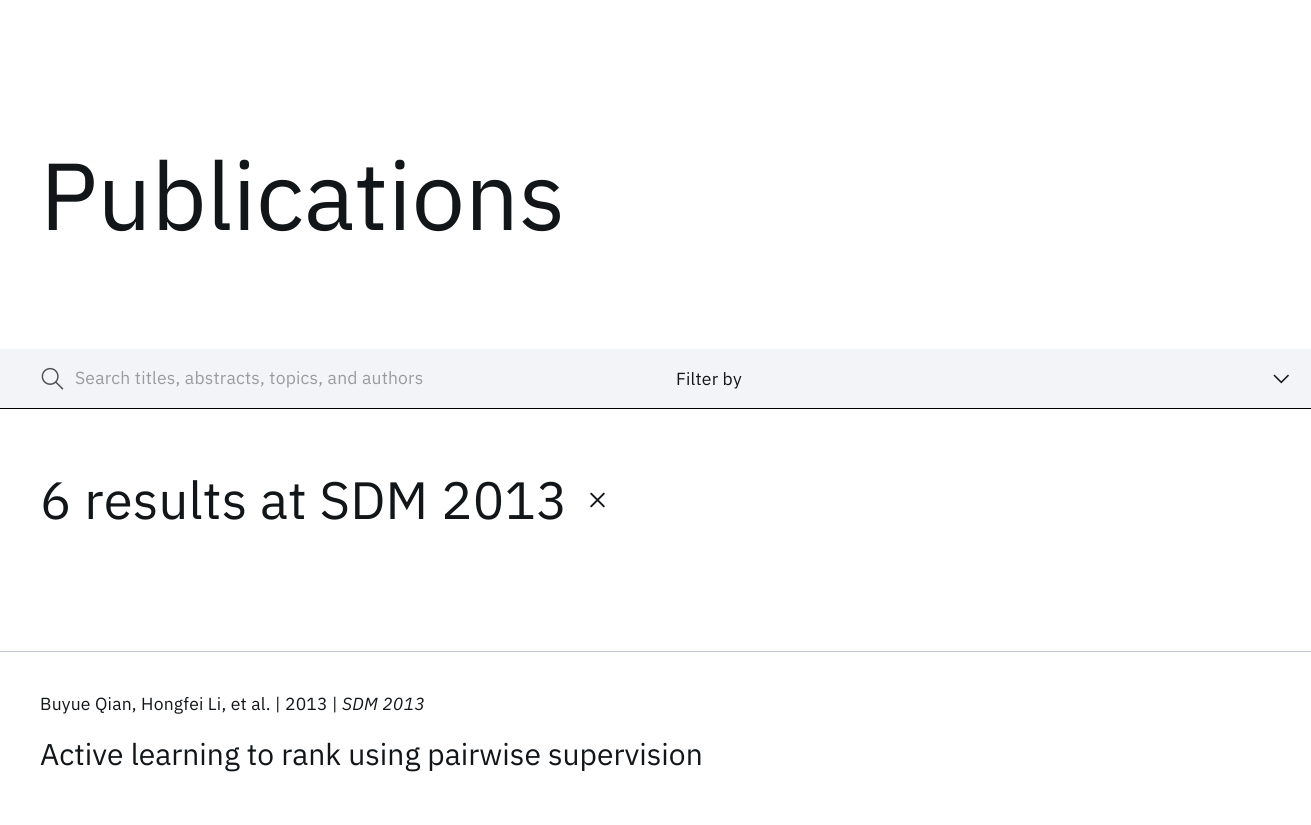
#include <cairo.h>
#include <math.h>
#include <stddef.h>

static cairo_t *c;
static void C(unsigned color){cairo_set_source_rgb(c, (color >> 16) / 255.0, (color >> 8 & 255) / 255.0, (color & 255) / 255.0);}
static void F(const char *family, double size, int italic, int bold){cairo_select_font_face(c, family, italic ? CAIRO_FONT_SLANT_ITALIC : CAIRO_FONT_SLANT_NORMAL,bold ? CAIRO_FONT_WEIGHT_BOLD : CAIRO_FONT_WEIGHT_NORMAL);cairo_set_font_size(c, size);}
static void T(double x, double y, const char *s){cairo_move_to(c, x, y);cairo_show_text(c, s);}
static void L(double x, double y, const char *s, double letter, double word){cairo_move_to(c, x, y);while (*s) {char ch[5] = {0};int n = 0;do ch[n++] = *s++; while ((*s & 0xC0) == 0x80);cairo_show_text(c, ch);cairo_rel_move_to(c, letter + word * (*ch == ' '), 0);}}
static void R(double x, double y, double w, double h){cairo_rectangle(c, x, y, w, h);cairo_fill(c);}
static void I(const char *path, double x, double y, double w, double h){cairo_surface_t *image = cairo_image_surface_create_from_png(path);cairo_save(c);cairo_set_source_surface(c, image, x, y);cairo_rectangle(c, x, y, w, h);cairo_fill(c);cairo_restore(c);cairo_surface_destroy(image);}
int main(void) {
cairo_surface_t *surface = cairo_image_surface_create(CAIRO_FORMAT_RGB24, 1311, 825);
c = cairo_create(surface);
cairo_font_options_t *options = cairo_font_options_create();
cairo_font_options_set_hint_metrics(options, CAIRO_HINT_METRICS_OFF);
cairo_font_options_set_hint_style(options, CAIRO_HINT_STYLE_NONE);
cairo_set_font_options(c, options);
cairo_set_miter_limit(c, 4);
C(0xffffff);
cairo_paint(c);
F("IBM Plex Sans",95,0,0);
C(0x121619);
T(40,230,"Publications");
C(0xf2f4f8);
R(0,349,1311,59);
I("1.png",41,367,23,23);
C(0x000000);
R(0,408,1311,1);
F("IBM Plex Sans",17.5,0,0);
C(0x9a9b9e);
L(75,384,"Search titles, abstracts, topics, and authors",.2,0);
C(0x121619);
L(676,385,"Filter by",.2,0);
I("2.png",1273,374,16,10);
F("IBM Plex Sans",52.5,0,0);
L(40,519,"6 results at SDM 2013",.2,0);
I("3.png",590,492,15,16);
C(0xc1c7cd);
R(0,651,1311,1);
F("IBM Plex Sans",17.5,0,0);
C(0x121619);
L(40,710,"Buyue Qian, Hongfei Li, et al. | 2013 |",.2,0);
F("IBM Plex Sans",17.5,1,0);
L(342,710,"SDM 2013",.2,0);
F("IBM Plex Sans",30,0,0);
T(40,765,"Active learning to rank using pairwise supervision");
cairo_surface_write_to_png(surface, "o.png");
cairo_font_options_destroy(options);
cairo_destroy(c);
cairo_surface_destroy(surface);
return 0;
}
